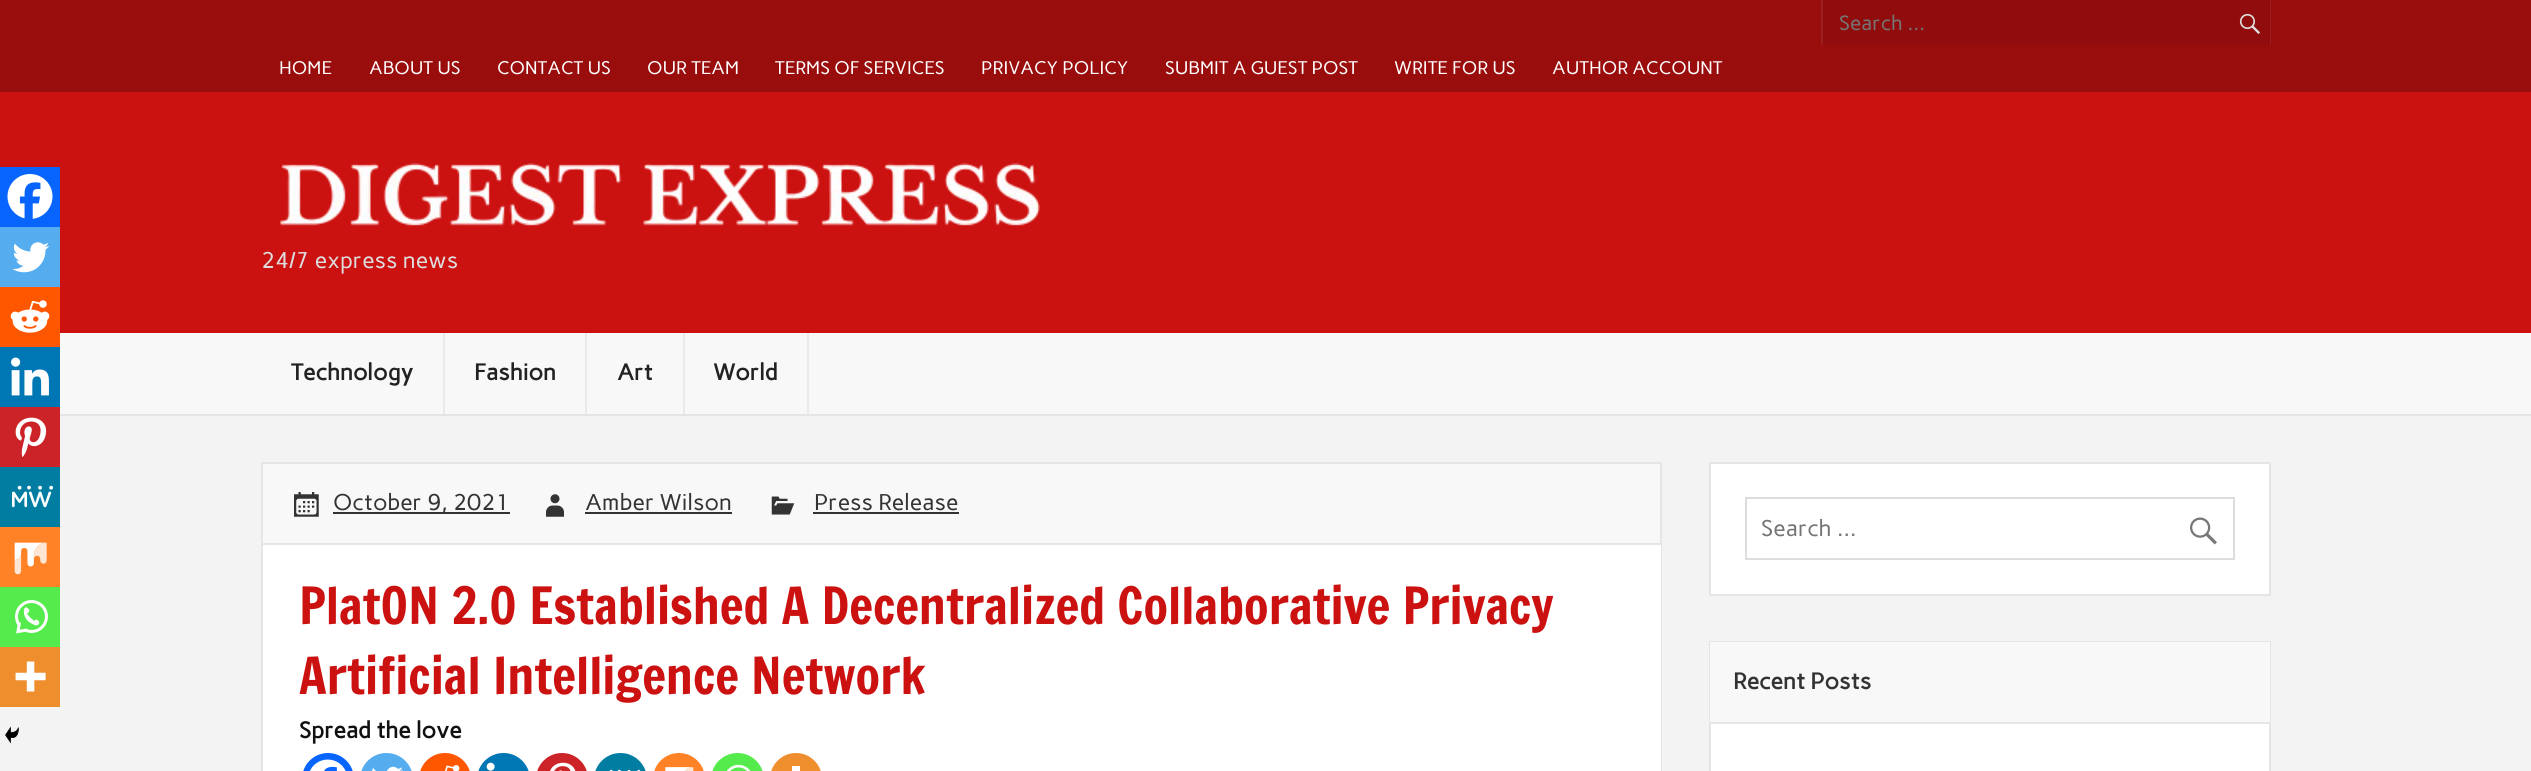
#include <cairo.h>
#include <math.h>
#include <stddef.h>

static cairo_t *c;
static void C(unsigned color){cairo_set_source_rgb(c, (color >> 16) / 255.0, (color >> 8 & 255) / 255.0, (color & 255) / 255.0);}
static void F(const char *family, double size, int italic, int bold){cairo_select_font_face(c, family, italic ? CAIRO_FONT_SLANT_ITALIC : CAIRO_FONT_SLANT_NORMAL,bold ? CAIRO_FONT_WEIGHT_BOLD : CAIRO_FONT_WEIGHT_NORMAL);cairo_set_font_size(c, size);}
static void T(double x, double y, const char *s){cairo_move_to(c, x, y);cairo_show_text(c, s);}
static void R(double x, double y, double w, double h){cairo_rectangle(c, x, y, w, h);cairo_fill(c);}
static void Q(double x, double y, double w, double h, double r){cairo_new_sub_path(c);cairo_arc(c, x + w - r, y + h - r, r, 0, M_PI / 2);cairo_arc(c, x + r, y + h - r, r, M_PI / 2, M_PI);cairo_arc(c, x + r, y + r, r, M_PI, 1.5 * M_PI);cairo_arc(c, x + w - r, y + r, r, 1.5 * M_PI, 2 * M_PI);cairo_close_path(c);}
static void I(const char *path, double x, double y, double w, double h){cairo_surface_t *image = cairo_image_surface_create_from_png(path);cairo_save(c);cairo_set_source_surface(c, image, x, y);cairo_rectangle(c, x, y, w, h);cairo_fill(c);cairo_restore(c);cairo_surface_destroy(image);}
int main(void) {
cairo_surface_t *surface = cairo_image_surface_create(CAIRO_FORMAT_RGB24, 2531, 771);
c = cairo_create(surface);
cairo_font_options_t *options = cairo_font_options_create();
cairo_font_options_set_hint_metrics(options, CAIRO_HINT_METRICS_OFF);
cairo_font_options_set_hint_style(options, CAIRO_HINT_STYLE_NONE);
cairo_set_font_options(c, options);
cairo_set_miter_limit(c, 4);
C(0xf3f3f3);
cairo_paint(c);
C(0xcc1111);
R(0,92,2531,241);
C(0x990d0d);
R(0,0,2531,92);
C(0x910c0c);
R(1823,0,447,45);
C(0x9a1f1f);
R(2270,0,1,45);
R(1821,0,2,45);
F("Carme",20.5,0,0);
C(0x757575);
T(1839,30,"Search …");
I("1.png",2239,13,21,21);
F("Carme",18.25,0,0);
C(0xffffff);
T(279,74,"HOME");
T(369,74,"ABOUT US");
T(497,74,"CONTACT US");
T(647,74,"OUR TEAM");
T(775,74,"TERMS OF SERVICES");
T(981,74,"PRIVACY POLICY");
T(1165,74,"SUBMIT A GUEST POST");
T(1394,74,"WRITE FOR US");
T(1552,74,"AUTHOR ACCOUNT");
I("2.png",279,162,761,64);
F("Carme",22.75,0,0);
C(0xdddddd);
T(261,268,"24/7 express news");
C(0xf8f8f8);
R(60,333,2471,81);
C(0xe5e5e5);
R(60,414,2471,2);
C(0xeaeaea);
R(443,333,2,81);
F("Carme",22.75,0,1);
C(0x222222);
T(291,380,"Technology");
C(0xeaeaea);
R(585,333,2,81);
C(0x222222);
T(474,380,"Fashion");
C(0xeaeaea);
R(683,333,2,81);
C(0x222222);
T(617,380,"Art");
C(0xeaeaea);
R(807,333,2,81);
C(0x222222);
T(713,380,"World");
C(0xf8f8f8);
R(263,464,1397,79);
cairo_rectangle(c,262,463,1399,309);
C(0xe5e5e5);
cairo_stroke(c);
I("3.png",294,492,25,25);
C(0x333333);
R(333,512,177,2);
F("Carme",22.75,0,0);
T(333,510,"October 9, 2021");
I("4.png",546,494,18,23);
T(585,510,"Amber Wilson");
R(585,512,147,2);
I("5.png",771,496,24,19);
T(814,510,"Press Release");
R(813,512,146,2);
C(0xffffff);
R(263,545,1398,226);
C(0xe5e5e5);
R(263,543,1398,2);
F("Francois One",50.15,0,0);
C(0xcc1111);
T(299,624,"PlatON 2.0 Established A Decentralized Collaborative Privacy");
T(299,694,"Artificial Intelligence Network");
C(0x0765fe);
R(0,167,60,60);
I("6.png",7,174,46,45);
C(0x55acee);
R(0,227,60,60);
I("7.png",12,242,37,31);
C(0xff5700);
R(0,287,60,60);
I("8.png",10,300,40,33);
C(0x0077b5);
R(0,347,60,60);
I("9.png",11,357,38,39);
C(0xcc2329);
R(0,407,60,60);
I("10.png",15,417,32,40);
C(0x007da1);
R(0,467,60,60);
I("11.png",12,485,41,23);
C(0xff8226);
R(0,527,60,60);
I("12.png",14,542,33,33);
C(0x55eb4c);
R(0,587,60,60);
I("13.png",15,600,33,34);
C(0xee8e2d);
R(0,647,60,60);
I("14.png",15,661,31,31);
I("15.png",5,726,14,18);
F("Carme",22.75,0,1);
C(0x111111);
T(299,738,"Spread the love");
C(0x0765fe);
Q(302,753,52,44,26);
cairo_fill(c);
I("16.png",310,759,36,12);
C(0x55acee);
Q(360,753,53,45,26.5);
cairo_fill(c);
I("17.png",372,766,31,5);
C(0xff5700);
Q(419,753,52,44,26);
cairo_fill(c);
I("18.png",444,765,16,6);
C(0x0077b5);
Q(477,753,53,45,26.5);
cairo_fill(c);
I("19.png",486,762,9,9);
C(0xcc2329);
Q(536,753,52,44,26);
cairo_fill(c);
I("20.png",550,762,26,9);
C(0x007da1);
Q(594,753,53,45,26.5);
cairo_fill(c);
I("21.png",609,769,32,2);
C(0xff8226);
Q(653,753,52,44,26);
cairo_fill(c);
I("22.png",665,767,29,4);
C(0x55eb4c);
Q(711,753,53,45,26.5);
cairo_fill(c);
I("23.png",726,764,25,7);
C(0xee8e2d);
Q(770,753,52,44,26);
cairo_fill(c);
C(0xffffff);
R(792,766,8,5);
cairo_rectangle(c,1710,463,560,132);
cairo_fill_preserve(c);
C(0xe5e5e5);
cairo_stroke(c);
cairo_rectangle(c,1746,498,488,61);
C(0xdddddd);
cairo_stroke(c);
F("Carme",22.75,0,0);
C(0x757575);
T(1761,536,"Search …");
I("24.png",2190,517,27,28);
C(0xffffff);
R(1711,724,558,47);
cairo_rectangle(c,1710,642,560,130);
C(0xe5e5e5);
cairo_stroke(c);
C(0xf8f8f8);
R(1710,642,560,80);
C(0xe5e5e5);
R(1710,722,560,2);
F("Carme",22.75,0,1);
C(0x333333);
T(1733,689,"Recent Posts");
cairo_surface_write_to_png(surface, "o.png");
cairo_font_options_destroy(options);
cairo_destroy(c);
cairo_surface_destroy(surface);
return 0;
}
